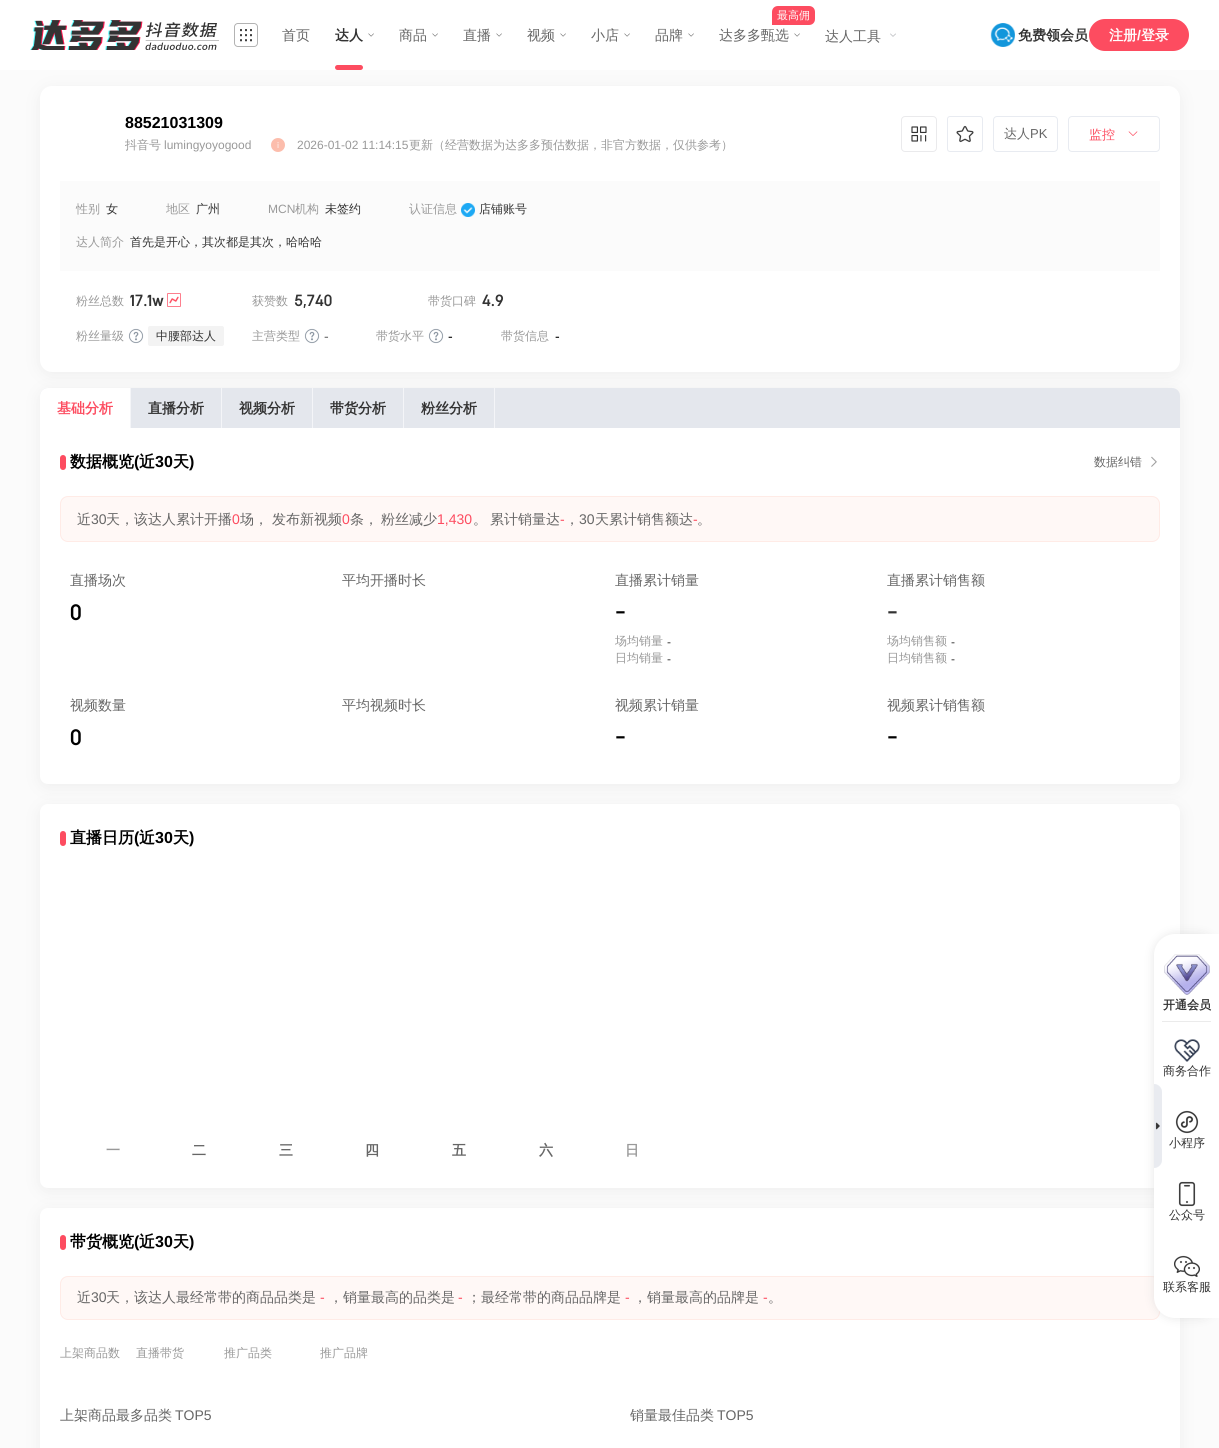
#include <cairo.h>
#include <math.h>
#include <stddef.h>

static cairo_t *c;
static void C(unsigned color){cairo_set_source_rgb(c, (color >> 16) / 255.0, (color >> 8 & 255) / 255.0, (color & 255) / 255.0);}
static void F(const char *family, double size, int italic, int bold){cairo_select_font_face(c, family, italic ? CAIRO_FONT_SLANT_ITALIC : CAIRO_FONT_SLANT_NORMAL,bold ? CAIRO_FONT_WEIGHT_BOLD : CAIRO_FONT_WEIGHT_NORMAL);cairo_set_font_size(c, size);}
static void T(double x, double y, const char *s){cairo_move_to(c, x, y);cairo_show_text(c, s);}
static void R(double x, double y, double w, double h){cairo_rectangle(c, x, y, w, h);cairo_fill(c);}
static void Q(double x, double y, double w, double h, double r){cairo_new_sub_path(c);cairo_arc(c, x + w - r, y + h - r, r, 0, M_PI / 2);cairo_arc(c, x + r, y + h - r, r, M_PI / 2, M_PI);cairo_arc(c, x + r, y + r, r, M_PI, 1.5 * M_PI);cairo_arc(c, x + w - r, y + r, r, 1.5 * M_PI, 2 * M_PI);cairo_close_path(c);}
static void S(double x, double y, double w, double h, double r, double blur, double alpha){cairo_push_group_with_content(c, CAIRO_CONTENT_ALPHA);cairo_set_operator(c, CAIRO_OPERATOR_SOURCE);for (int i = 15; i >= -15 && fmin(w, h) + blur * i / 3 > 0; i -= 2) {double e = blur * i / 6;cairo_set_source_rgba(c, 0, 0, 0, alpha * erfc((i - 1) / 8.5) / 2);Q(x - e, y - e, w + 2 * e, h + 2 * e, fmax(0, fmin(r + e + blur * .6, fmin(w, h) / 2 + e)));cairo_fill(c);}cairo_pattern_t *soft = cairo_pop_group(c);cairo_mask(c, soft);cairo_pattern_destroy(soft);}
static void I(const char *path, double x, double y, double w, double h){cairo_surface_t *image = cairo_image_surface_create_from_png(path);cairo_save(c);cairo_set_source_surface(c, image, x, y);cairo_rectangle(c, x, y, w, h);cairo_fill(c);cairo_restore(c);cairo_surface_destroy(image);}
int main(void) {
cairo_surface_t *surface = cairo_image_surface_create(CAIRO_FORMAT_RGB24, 1219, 1448);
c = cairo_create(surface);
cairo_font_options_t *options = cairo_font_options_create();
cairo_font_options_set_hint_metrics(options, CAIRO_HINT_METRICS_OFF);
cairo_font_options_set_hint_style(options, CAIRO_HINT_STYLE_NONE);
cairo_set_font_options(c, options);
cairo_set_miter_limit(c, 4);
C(0xfbfbfb);
cairo_paint(c);
C(0x7b7b7b);
S(40,89,1140,286,12,7.5,.1);
C(0xffffff);
R(0,0,1219,70);
I("1.png",30,20,189,30);
I("2.png",234,23,24,24);
F("WenQuanYi Zen Hei Medium",14,0,0);
C(0x666666);
T(282,40,"首页");
F("WenQuanYi Zen Hei",14,0,1);
C(0x333333);
T(335,40,"达人");
I("3.png",368,33,6,4);
C(0xfd4c60);
Q(335,65,28,5,2.5);
cairo_fill(c);
F("WenQuanYi Zen Hei Medium",14,0,0);
C(0x666666);
T(399,40,"商品");
I("3.png",432,33,6,4);
T(463,40,"直播");
I("3.png",496,33,6,4);
T(527,40,"视频");
I("3.png",560,33,6,4);
T(591,40,"小店");
I("3.png",624,33,6,4);
T(655,40,"品牌");
I("3.png",688,33,6,4);
C(0xfd4c60);
cairo_new_path(c);
cairo_move_to(c,778,6);
cairo_line_to(c,809,6);
cairo_curve_to(c,812.5,6,815,8.5,815,12);
cairo_line_to(c,815,19);
cairo_curve_to(c,815,22.5,812.5,25,809,25);
cairo_line_to(c,772,25);
cairo_line_to(c,772,12);
cairo_curve_to(c,772,8.5,774.5,6,778,6);
cairo_close_path(c);
cairo_fill(c);
F("WenQuanYi Zen Hei Medium",11,0,0);
C(0xffffff);
T(777,19,"最高佣");
F("WenQuanYi Zen Hei Medium",14,0,0);
C(0x666666);
T(719,40,"达多多甄选");
I("3.png",794,33,6,4);
T(825,41,"达人工具");
I("4.png",890,33,6,4);
I("5.png",990,23,25,24);
F("WenQuanYi Zen Hei",14,0,1);
C(0x333333);
T(1018,40,"免费领会员");
C(0xfd4c60);
Q(1089,19,100,32,16);
cairo_fill(c);
C(0xffffff);
T(1109,40,"注册");
F("Liberation Sans",14,0,1);
T(1137,40,"/");
F("WenQuanYi Zen Hei",14,0,1);
T(1141,40,"登录");
Q(40,86,1140,286,12);
cairo_fill(c);
C(0x7b7b7b);
S(40,391,1140,396,8,7.5,.1);
C(0xffffff);
cairo_new_path(c);
cairo_move_to(c,40,428);
cairo_line_to(c,1180,428);
cairo_line_to(c,1180,776);
cairo_curve_to(c,1180,780.5,1176.5,784,1172,784);
cairo_line_to(c,48,784);
cairo_curve_to(c,43.5,784,40,780.5,40,776);
cairo_close_path(c);
cairo_fill(c);
C(0x7b7b7b);
S(40,807,1140,384,8,7.5,.1);
C(0xffffff);
Q(40,804,1140,384,8);
cairo_fill(c);
C(0x7b7b7b);
S(40,1211,1140,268,8,7.5,.1);
C(0xffffff);
Q(40,1208,1140,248,8);
cairo_fill(c);
C(0xfff8f6);
Q(60,1276,1100,44,8);
cairo_fill(c);
Q(60.5,1276.5,1099,43,7.5);
cairo_set_source_rgba(c,1,0.467,0.322,0.1);
cairo_set_line_width(c,1);
cairo_stroke(c);
C(0xcccccc);
S(1154,934,65,384,21,5,.5);
C(0xffffff);
cairo_new_path(c);
cairo_move_to(c,1175,934);
cairo_line_to(c,1219,934);
cairo_line_to(c,1219,1318);
cairo_line_to(c,1175,1318);
cairo_curve_to(c,1163.5,1318,1154,1308.5,1154,1297);
cairo_line_to(c,1154,955);
cairo_curve_to(c,1154,943.5,1163.5,934,1175,934);
cairo_close_path(c);
cairo_fill(c);
I("6.png",1164,954,46,41);
F("WenQuanYi Zen Hei",12,0,1);
C(0x333333);
T(1163,1009,"开通会员");
C(0xebebeb);
R(1162,1021,49,1);
I("7.png",1174,1039,26,23);
F("WenQuanYi Zen Hei Medium",12,0,0);
C(0x333333);
T(1163,1075,"商务合作");
I("8.png",1154,1084,8,84);
I("9.png",1175,1110,24,24);
T(1169,1147,"小程序");
I("10.png",1178,1181,18,26);
T(1169,1219,"公众号");
I("11.png",1174,1255,26,22);
T(1163,1291,"联系客服");
F("Liberation Sans",16,0,1);
C(0x000000);
T(125,128,"88521031309");
cairo_save(c);
cairo_rectangle(c,125,137,126,17);
cairo_clip(c);
F("WenQuanYi Zen Hei Medium",12,0,0);
C(0x999999);
T(125,149,"抖音号");
cairo_restore(c);
F("Liberation Sans",12,0,0);
C(0x999999);
T(164,149,"lumingyoyogood");
I("12.png",271,138,14,14);
T(297,149,"2026-01-02 11:14:15");
F("WenQuanYi Zen Hei Medium",12,0,0);
T(409,149,"更新（经营数据为达多多预估数据，非官方数据，仅供参考）");
Q(901.5,116.5,35,35,3.5);
C(0xeaeaec);
cairo_stroke(c);
I("13.png",911,126,16,16);
Q(947.5,116.5,35,35,2.5);
C(0xe8ebf1);
cairo_stroke(c);
I("14.png",956,125,18,18);
Q(993.5,116.5,64,35,3.5);
cairo_stroke(c);
F("WenQuanYi Zen Hei Medium",13,0,0);
C(0x666666);
T(1004,138,"达人");
F("Liberation Sans",13,0,0);
T(1030,138,"PK");
Q(1068.5,116.5,91,35,3.5);
C(0xe8ebf1);
cairo_stroke(c);
F("WenQuanYi Zen Hei Medium",13,0,0);
C(0xfd4c60);
T(1089,139,"监控");
I("15.png",1128,131,10,5);
C(0xfbfbfb);
R(60,181,1100,90);
F("WenQuanYi Zen Hei Medium",12,0,0);
C(0x999999);
T(76,213,"性别");
C(0x333333);
T(106,213,"女");
C(0x999999);
T(166,213,"地区");
C(0x333333);
T(196,213,"广州");
F("Liberation Sans",12,0,0);
C(0x999999);
T(268,213,"MCN");
F("WenQuanYi Zen Hei Medium",12,0,0);
T(295,213,"机构");
C(0x333333);
T(325,213,"未签约");
C(0x999999);
T(409,213,"认证信息");
I("16.png",461,203,14,14);
C(0x333333);
T(479,213,"店铺账号");
C(0x999999);
T(76,246,"达人简介");
C(0x333333);
T(130,246,"首先是开心，其次都是其次，哈哈哈");
C(0x999999);
T(76,305,"粉丝总数");
F("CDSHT",16,0,0);
C(0x333333);
T(130,306,"17.1w");
I("17.png",167,293,14,14);
F("WenQuanYi Zen Hei Medium",12,0,0);
C(0x999999);
T(252,305,"获赞数");
F("CDSHT",16,0,0);
C(0x333333);
T(294,306,"5,740");
F("WenQuanYi Zen Hei Medium",12,0,0);
C(0x999999);
T(428,305,"带货口碑");
F("CDSHT",16,0,0);
C(0x333333);
T(482,306,"4.9");
F("WenQuanYi Zen Hei Medium",12,0,0);
C(0x999999);
T(76,340,"粉丝量级");
I("18.png",128,328,16,16);
C(0xf3f3f3);
Q(148,326,76,20,2);
cairo_fill(c);
C(0x333333);
T(156,340,"中腰部达人");
C(0x999999);
T(252,340,"主营类型");
I("18.png",304,328,16,16);
F("Liberation Sans",14,0,0);
C(0x666666);
T(324,341,"-");
F("WenQuanYi Zen Hei Medium",12,0,0);
C(0x999999);
T(376,340,"带货水平");
I("18.png",428,328,16,16);
F("Liberation Sans",14,0,0);
C(0x000000);
T(448,341,"-");
F("WenQuanYi Zen Hei Medium",12,0,0);
C(0x999999);
T(501,340,"带货信息");
F("Liberation Sans",14,0,0);
C(0x000000);
T(555,341,"-");
C(0xe4e7ed);
cairo_new_path(c);
cairo_move_to(c,48,388);
cairo_line_to(c,1172,388);
cairo_curve_to(c,1176.5,388,1180,391.5,1180,396);
cairo_line_to(c,1180,428);
cairo_line_to(c,40,428);
cairo_line_to(c,40,396);
cairo_curve_to(c,40,391.5,43.5,388,48,388);
cairo_close_path(c);
cairo_fill(c);
C(0xffffff);
cairo_new_path(c);
cairo_move_to(c,48,388);
cairo_line_to(c,130,388);
cairo_line_to(c,130,428);
cairo_line_to(c,40,428);
cairo_line_to(c,40,396);
cairo_curve_to(c,40,391.5,43.5,388,48,388);
cairo_close_path(c);
cairo_fill(c);
F("WenQuanYi Zen Hei",14,0,1);
C(0xfd4c60);
T(57,413,"基础分析");
C(0xf4f5f8);
R(130,388,1,40);
C(0x333333);
T(148,413,"直播分析");
C(0xf4f5f8);
R(221,388,1,40);
C(0x333333);
T(239,413,"视频分析");
C(0xf4f5f8);
R(312,388,1,40);
C(0x333333);
T(330,413,"带货分析");
C(0xf4f5f8);
R(403,388,1,40);
C(0x333333);
T(421,413,"粉丝分析");
C(0xf4f5f8);
R(494,388,1,40);
C(0xfd4c60);
Q(60,455,6,15,3);
cairo_fill(c);
F("WenQuanYi Zen Hei",16,0,1);
C(0x000000);
T(70,467,"数据概览");
F("Liberation Sans",16,0,1);
T(134,467,"(");
F("WenQuanYi Zen Hei",16,0,1);
T(139,467,"近");
F("Liberation Sans",16,0,1);
T(155,467,"30");
F("WenQuanYi Zen Hei",16,0,1);
T(173,467,"天");
F("Liberation Sans",16,0,1);
T(189,467,")");
F("WenQuanYi Zen Hei Medium",12,0,0);
C(0x666666);
T(1094,466,"数据纠错");
I("19.png",1151,456,6,11);
C(0xfff8f6);
Q(60,496,1100,46,8);
cairo_fill(c);
Q(60.5,496.5,1099,45,7.5);
cairo_set_source_rgba(c,1,0.467,0.322,0.1);
cairo_stroke(c);
F("WenQuanYi Zen Hei Medium",14,0,0);
C(0x666666);
T(77,524,"近");
F("Liberation Sans",14,0,0);
T(91,524,"30");
F("WenQuanYi Zen Hei Medium",14,0,0);
T(106,524,"天，该达人累计开播");
F("Liberation Sans",14,0,0);
C(0xfd4c60);
T(232,524,"0");
F("WenQuanYi Zen Hei Medium",14,0,0);
C(0x666666);
T(240,524,"场，");
T(272,524,"发布新视频");
F("Liberation Sans",14,0,0);
C(0xfd4c60);
T(342,524,"0");
F("WenQuanYi Zen Hei Medium",14,0,0);
C(0x666666);
T(350,524,"条，");
T(381,524,"粉丝减少");
F("Liberation Sans",14,0,0);
C(0xfd4c60);
T(437,524,"1,430");
F("WenQuanYi Zen Hei Medium",14,0,0);
C(0x666666);
T(490,524,"累计销量达");
F("Liberation Sans",14,0,0);
C(0xfd4c60);
T(560,524,"-");
C(0x666666);
T(579,524,"30");
F("WenQuanYi Zen Hei Medium",14,0,0);
T(595,524,"天累计销售额达");
F("Liberation Sans",14,0,0);
C(0xfd4c60);
T(693,524,"-");
F("WenQuanYi Zen Hei Medium",14,0,0);
C(0x666666);
T(473,524,"。");
T(565,524,"，");
T(697,524,"。");
T(70,585,"直播场次");
F("CDSHT",22,0,0);
C(0x000000);
T(70,620,"0");
F("WenQuanYi Zen Hei Medium",14,0,0);
C(0x666666);
T(342,585,"平均开播时长");
T(615,585,"直播累计销量");
F("CDSHT",22,0,0);
C(0x000000);
T(615,620,"-");
F("WenQuanYi Zen Hei Medium",12,0,0);
C(0x999999);
T(615,645,"场均销量");
F("Liberation Sans",12,0,0);
C(0x333333);
T(667,646,"-");
F("WenQuanYi Zen Hei Medium",12,0,0);
C(0x999999);
T(615,662,"日均销量");
F("Liberation Sans",12,0,0);
C(0x333333);
T(667,663,"-");
F("WenQuanYi Zen Hei Medium",14,0,0);
C(0x666666);
T(887,585,"直播累计销售额");
F("CDSHT",22,0,0);
C(0x333333);
T(887,620,"-");
F("WenQuanYi Zen Hei Medium",12,0,0);
C(0x999999);
T(887,645,"场均销售额");
F("Liberation Sans",12,0,0);
C(0x333333);
T(951,646,"-");
F("WenQuanYi Zen Hei Medium",12,0,0);
C(0x999999);
T(887,662,"日均销售额");
F("Liberation Sans",12,0,0);
C(0x333333);
T(951,663,"-");
F("WenQuanYi Zen Hei Medium",14,0,0);
C(0x666666);
T(70,710,"视频数量");
F("CDSHT",22,0,0);
C(0x000000);
T(70,745,"0");
F("WenQuanYi Zen Hei Medium",14,0,0);
C(0x666666);
T(342,710,"平均视频时长");
T(615,710,"视频累计销量");
F("CDSHT",22,0,0);
C(0x000000);
T(615,745,"-");
F("WenQuanYi Zen Hei Medium",14,0,0);
C(0x666666);
T(887,710,"视频累计销售额");
F("CDSHT",22,0,0);
C(0x000000);
T(887,745,"-");
C(0xfd4c60);
Q(60,831,6,15,3);
cairo_fill(c);
F("WenQuanYi Zen Hei",16,0,1);
C(0x000000);
T(70,843,"直播日历");
F("Liberation Sans",16,0,1);
T(134,843,"(");
F("WenQuanYi Zen Hei",16,0,1);
T(139,843,"近");
F("Liberation Sans",16,0,1);
T(155,843,"30");
F("WenQuanYi Zen Hei",16,0,1);
T(173,843,"天");
F("Liberation Sans",16,0,1);
T(189,843,")");
F("WenQuanYi Zen Hei",14,0,1);
C(0x999999);
T(106,1155,"一");
C(0x666666);
T(192,1155,"二");
T(279,1155,"三");
T(365,1155,"四");
T(452,1155,"五");
T(539,1155,"六");
C(0x999999);
T(625,1155,"日");
C(0xfd4c60);
Q(60,1235,6,15,3);
cairo_fill(c);
F("WenQuanYi Zen Hei",16,0,1);
C(0x000000);
T(70,1247,"带货概览");
F("Liberation Sans",16,0,1);
T(134,1247,"(");
F("WenQuanYi Zen Hei",16,0,1);
T(139,1247,"近");
F("Liberation Sans",16,0,1);
T(155,1247,"30");
F("WenQuanYi Zen Hei",16,0,1);
T(173,1247,"天");
F("Liberation Sans",16,0,1);
T(189,1247,")");
F("WenQuanYi Zen Hei Medium",14,0,0);
C(0x666666);
T(77,1302,"近");
F("Liberation Sans",14,0,0);
T(91,1302,"30");
F("WenQuanYi Zen Hei Medium",14,0,0);
T(106,1302,"天，该达人最经常带的商品品类是");
F("Liberation Sans",14,0,0);
C(0xfd4c60);
T(320,1302,"-");
F("WenQuanYi Zen Hei Medium",14,0,0);
C(0x666666);
T(329,1302,"，销量最高的品类是");
F("Liberation Sans",14,0,0);
C(0xfd4c60);
T(458,1302,"-");
F("WenQuanYi Zen Hei Medium",14,0,0);
C(0x666666);
T(467,1302,"；最经常带的商品品牌是");
F("Liberation Sans",14,0,0);
C(0xfd4c60);
T(625,1302,"-");
F("WenQuanYi Zen Hei Medium",14,0,0);
C(0x666666);
T(633,1302,"，销量最高的品牌是");
F("Liberation Sans",14,0,0);
C(0xfd4c60);
T(763,1302,"-");
F("WenQuanYi Zen Hei Medium",14,0,0);
C(0x666666);
T(768,1302,"。");
F("WenQuanYi Zen Hei Medium",12,0,0);
C(0x999999);
T(60,1357,"上架商品数");
T(136,1357,"直播带货");
T(224,1357,"推广品类");
T(320,1357,"推广品牌");
F("WenQuanYi Zen Hei Medium",14,0,0);
C(0x666666);
T(60,1420,"上架商品最多品类");
F("Liberation Sans",14,0,0);
T(175,1420,"TOP5");
F("WenQuanYi Zen Hei Medium",14,0,0);
T(630,1420,"销量最佳品类");
F("Liberation Sans",14,0,0);
T(717,1420,"TOP5");
cairo_surface_write_to_png(surface, "o.png");
cairo_font_options_destroy(options);
cairo_destroy(c);
cairo_surface_destroy(surface);
return 0;
}
